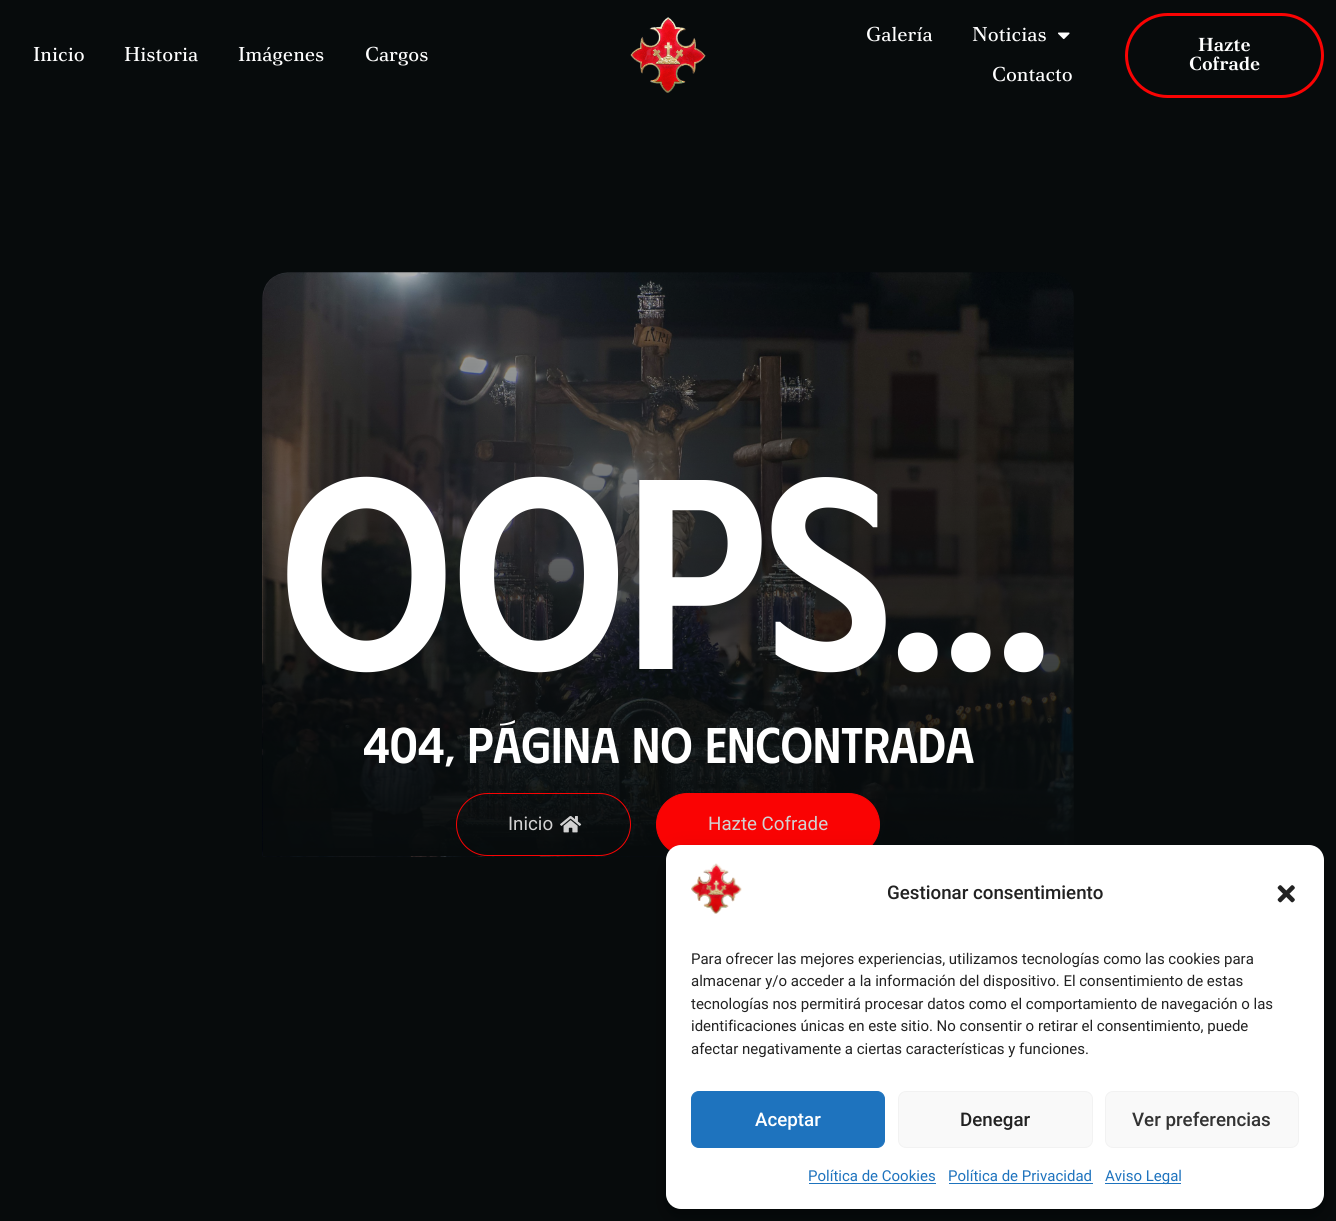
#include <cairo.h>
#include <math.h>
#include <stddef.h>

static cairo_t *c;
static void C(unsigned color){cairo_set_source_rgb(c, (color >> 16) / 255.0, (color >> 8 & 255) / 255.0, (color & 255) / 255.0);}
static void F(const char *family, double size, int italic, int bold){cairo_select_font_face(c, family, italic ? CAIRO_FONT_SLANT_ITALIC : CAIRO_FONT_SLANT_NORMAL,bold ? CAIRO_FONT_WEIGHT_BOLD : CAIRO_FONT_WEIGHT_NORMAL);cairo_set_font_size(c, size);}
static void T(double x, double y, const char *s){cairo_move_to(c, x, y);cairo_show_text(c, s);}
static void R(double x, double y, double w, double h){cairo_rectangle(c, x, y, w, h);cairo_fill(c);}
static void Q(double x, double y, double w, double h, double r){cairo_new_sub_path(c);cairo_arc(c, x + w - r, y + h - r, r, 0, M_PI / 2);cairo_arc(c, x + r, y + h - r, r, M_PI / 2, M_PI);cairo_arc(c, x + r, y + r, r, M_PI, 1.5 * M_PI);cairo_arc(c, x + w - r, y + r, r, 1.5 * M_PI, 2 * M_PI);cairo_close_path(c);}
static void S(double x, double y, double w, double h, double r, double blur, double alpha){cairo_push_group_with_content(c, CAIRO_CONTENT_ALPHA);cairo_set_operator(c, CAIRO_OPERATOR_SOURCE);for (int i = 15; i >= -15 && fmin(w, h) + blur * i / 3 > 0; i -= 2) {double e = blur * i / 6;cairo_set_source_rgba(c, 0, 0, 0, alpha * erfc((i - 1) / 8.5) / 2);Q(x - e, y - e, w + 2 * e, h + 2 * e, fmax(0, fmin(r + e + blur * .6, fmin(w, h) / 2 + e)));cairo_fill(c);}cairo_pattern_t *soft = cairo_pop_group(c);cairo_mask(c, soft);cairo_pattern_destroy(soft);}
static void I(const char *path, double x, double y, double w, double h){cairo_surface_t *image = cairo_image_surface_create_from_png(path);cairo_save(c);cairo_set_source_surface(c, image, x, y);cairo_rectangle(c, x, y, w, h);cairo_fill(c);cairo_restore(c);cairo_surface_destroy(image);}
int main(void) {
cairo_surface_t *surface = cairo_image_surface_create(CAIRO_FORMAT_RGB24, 1336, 1221);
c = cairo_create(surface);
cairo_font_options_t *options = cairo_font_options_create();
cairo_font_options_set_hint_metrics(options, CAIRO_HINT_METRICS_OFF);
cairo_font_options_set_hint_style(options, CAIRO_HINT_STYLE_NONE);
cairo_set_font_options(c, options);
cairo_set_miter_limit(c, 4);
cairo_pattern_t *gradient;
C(0x070b0c);
cairo_paint(c);
F("Poltawski Nowy",20,0,0);
C(0xffffff);
T(33,61,"Inicio");
T(124,61,"Historia");
T(238,61,"Imágenes");
T(365,61,"Cargos");
I("1.png",630,17,76,76);
T(866,41,"Galería");
T(972,41,"Noticias");
I("2.png",1058,32,12,8);
T(992,81,"Contacto");
Q(1126.5,14.5,196,82,41);
C(0xfa0303);
cairo_set_line_width(c,3);
cairo_stroke(c);
F("Poltawski Nowy",18.75,0,1);
C(0xffffff);
T(1198,51,"Hazte");
T(1189,70,"Cofrade");
I("3.png",262,272,812,585);
gradient = cairo_pattern_create_linear(668,272,668,856);
cairo_pattern_add_color_stop_rgba(gradient,0,0.027,0.043,0.047,.32);
cairo_pattern_add_color_stop_rgba(gradient,1,0.027,0.043,0.047,1);
cairo_set_source(c,gradient);
cairo_pattern_destroy(gradient);
cairo_new_path(c);
cairo_move_to(c,288,273);
cairo_line_to(c,1049,273);
cairo_curve_to(c,1063,273,1074,284,1074,298);
cairo_line_to(c,1074,856);
cairo_line_to(c,263,856);
cairo_line_to(c,263,298);
cairo_curve_to(c,263,284,274,273,288,273);
cairo_close_path(c);
cairo_fill(c);
F("Phudu Medium",270,0,0);
C(0xffffff);
T(280,669,"Oops…");
F("Phudu Medium",50,0,0);
T(363,763,"404, Página No Encontrada");
Q(456.5,793.5,174,62,31);
C(0xfa0303);
cairo_set_line_width(c,1);
cairo_stroke(c);
F("Roboto",18.75,0,0);
C(0xd2d2d2);
T(508,830,"Inicio");
I("4.png",560,816,22,17);
C(0xfa0303);
Q(656.5,793.5,223,62,31);
cairo_fill_preserve(c);
cairo_stroke(c);
C(0xd2d2d2);
T(708,830,"Hazte Cofrade");
C(0x000000);
S(666,853,658,363,15,4,.23);
S(666,858,658,363,15,12.5,.19);
C(0xffffff);
Q(666,845,658,364,15);
cairo_fill(c);
I("5.png",691,863,51,51);
F("Roboto Medium",18.75,0,0);
C(0x222222);
T(887,899,"Gestionar consentimiento");
I("6.png",1277,885,18,18);
F("Roboto",15,0,0);
T(691,964,"Para ofrecer las mejores experiencias, utilizamos tecnologías como las cookies para");
T(691,986,"almacenar y/o acceder a la información del dispositivo. El consentimiento de estas");
T(691,1009,"tecnologías nos permitirá procesar datos como el comportamiento de navegación o las");
T(691,1031,"identificaciones únicas en este sitio. No consentir o retirar el consentimiento, puede");
T(691,1054,"afectar negativamente a ciertas características y funciones.");
C(0x1e73be);
Q(691.5,1091.5,193,56,7.5);
cairo_fill_preserve(c);
cairo_stroke(c);
F("Roboto Medium",18.75,0,0);
C(0xffffff);
T(755,1126,"Aceptar");
C(0xf9f9f9);
Q(898.5,1091.5,194,56,7.5);
cairo_fill_preserve(c);
C(0xf2f2f2);
cairo_stroke(c);
C(0x222222);
T(960,1126,"Denegar");
C(0xf9f9f9);
Q(1105.5,1091.5,193,56,7.5);
cairo_fill_preserve(c);
C(0xf2f2f2);
cairo_stroke(c);
C(0x333333);
T(1132,1126,"Ver preferencias");
F("Roboto",15,0,0);
C(0x1e73be);
T(808,1181,"Política de Cookies");
R(809,1183,127,1);
T(948,1181,"Política de Privacidad");
R(949,1183,144,1);
R(1105,1183,76,1);
T(1105,1181,"Aviso Legal");
cairo_surface_write_to_png(surface, "o.png");
cairo_font_options_destroy(options);
cairo_destroy(c);
cairo_surface_destroy(surface);
return 0;
}
